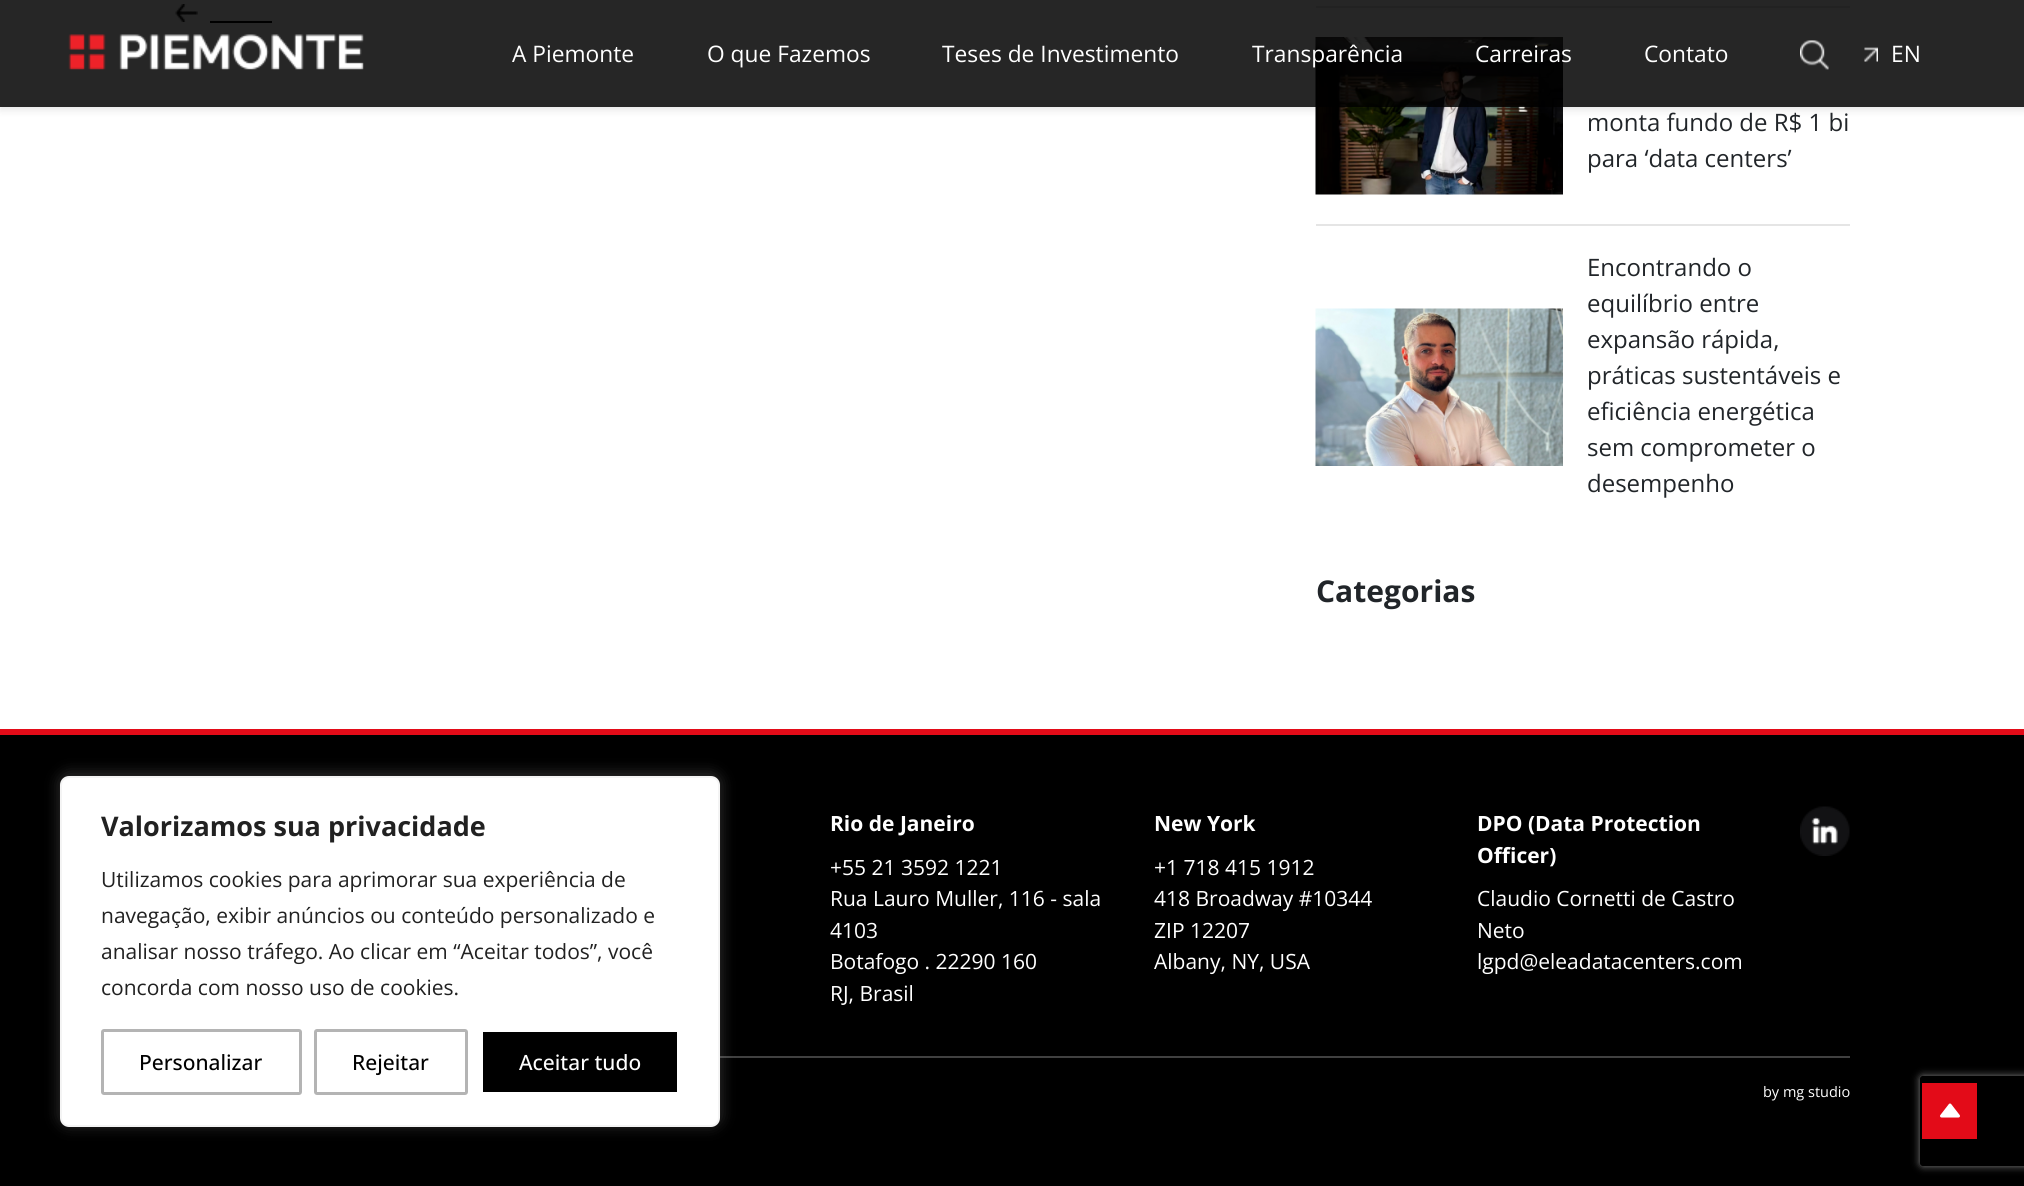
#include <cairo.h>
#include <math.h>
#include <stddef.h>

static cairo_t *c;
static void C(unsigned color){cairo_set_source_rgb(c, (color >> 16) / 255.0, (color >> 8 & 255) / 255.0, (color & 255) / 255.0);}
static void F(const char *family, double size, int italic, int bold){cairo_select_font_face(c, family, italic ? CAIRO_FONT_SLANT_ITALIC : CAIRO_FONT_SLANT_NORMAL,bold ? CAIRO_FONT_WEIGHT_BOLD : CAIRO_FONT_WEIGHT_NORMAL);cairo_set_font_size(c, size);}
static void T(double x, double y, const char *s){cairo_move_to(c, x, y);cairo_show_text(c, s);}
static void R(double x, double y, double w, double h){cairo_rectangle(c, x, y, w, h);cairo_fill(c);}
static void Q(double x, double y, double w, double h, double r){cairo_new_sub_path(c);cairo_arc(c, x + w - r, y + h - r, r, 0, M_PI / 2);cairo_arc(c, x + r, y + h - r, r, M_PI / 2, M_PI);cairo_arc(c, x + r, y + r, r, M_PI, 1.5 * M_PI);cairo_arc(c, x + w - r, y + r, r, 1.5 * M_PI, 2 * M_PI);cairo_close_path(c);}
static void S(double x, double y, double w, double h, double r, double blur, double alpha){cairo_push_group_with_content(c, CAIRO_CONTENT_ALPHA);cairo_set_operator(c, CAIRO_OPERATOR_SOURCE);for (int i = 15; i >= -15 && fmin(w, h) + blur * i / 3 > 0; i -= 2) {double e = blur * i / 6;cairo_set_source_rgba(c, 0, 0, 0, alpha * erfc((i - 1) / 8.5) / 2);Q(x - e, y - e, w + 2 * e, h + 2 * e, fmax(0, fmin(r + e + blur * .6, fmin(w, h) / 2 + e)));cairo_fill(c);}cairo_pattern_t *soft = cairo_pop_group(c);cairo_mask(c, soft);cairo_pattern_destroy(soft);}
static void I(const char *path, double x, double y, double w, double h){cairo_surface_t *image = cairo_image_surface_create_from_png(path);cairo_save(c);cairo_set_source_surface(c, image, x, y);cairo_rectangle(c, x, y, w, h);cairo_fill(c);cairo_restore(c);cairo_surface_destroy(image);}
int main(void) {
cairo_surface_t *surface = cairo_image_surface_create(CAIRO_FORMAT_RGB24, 2024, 1186);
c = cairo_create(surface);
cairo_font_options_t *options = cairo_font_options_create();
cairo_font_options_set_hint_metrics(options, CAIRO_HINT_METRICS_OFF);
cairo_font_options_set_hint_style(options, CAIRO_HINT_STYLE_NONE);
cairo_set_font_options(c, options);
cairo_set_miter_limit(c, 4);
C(0xffffff);
cairo_paint(c);
I("4.png",175,4,23,18);
C(0x000000);
R(210,21,62,2);
C(0xe5e5e5);
R(1316,6,534,2);
I("5.png",1315,37,248,158);
cairo_save(c);
cairo_set_fill_rule(c,CAIRO_FILL_RULE_EVEN_ODD);
cairo_new_path(c);
cairo_move_to(c,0,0);
cairo_line_to(c,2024,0);
cairo_line_to(c,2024,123);
cairo_line_to(c,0,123);
cairo_close_path(c);
cairo_move_to(c,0,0);
cairo_line_to(c,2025,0);
cairo_line_to(c,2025,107);
cairo_line_to(c,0,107);
cairo_close_path(c);
cairo_clip(c);
C(0x000000);
S(0,3,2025,107,0,4,.1);
cairo_restore(c);
cairo_set_source_rgba(c,0,0,0,0.85);
R(0,0,2024,107);
I("1.png",68,34,296,36);
F("Open Sans",22.75,0,0);
C(0xffffff);
T(512,62,"A Piemonte");
T(707,62,"O que Fazemos");
T(942,62,"Teses de Investimento");
T(1252,62,"Transparência");
T(1475,62,"Carreiras");
T(1644,62,"Contato");
I("2.png",1800,40,29,30);
I("3.png",1864,47,14,15);
T(1891,62,"EN");
C(0xe5e5e5);
R(1316,224,534,2);
F("Open Sans",24,0,0);
C(0x212529);
T(1587,131,"monta fundo de R$ 1 bi");
T(1587,167,"para ‘data centers’");
I("6.png",1315,308,248,158);
T(1587,276,"Encontrando o");
T(1587,312,"equilíbrio entre");
T(1587,348,"expansão rápida,");
T(1587,384,"práticas sustentáveis e");
T(1587,420,"eficiência energética");
T(1587,456,"sem comprometer o");
T(1587,492,"desempenho");
F("Open Sans",30,0,1);
T(1316,602,"Categorias");
C(0x000000);
R(0,735,2024,451);
C(0x404040);
R(720,1056,1130,2);
C(0xacabab);
S(60,774,660,351,9,7.5,.3);
C(0xffffff);
Q(61,777,658,349,8);
cairo_fill_preserve(c);
C(0xf4f4f4);
cairo_stroke(c);
F("Open Sans",27,0,1);
C(0x212121);
T(101,836,"Valorizamos sua privacidade");
F("Open Sans",21,0,0);
T(101,887,"Utilizamos cookies para aprimorar sua experiência de");
T(101,923,"navegação, exibir anúncios ou conteúdo personalizado e");
T(101,959,"analisar nosso tráfego. Ao clicar em “Aceitar todos”, você");
T(101,995,"concorda com nosso uso de cookies.");
Q(102.5,1030.5,198,63,1.5);
C(0xb4b4b4);
cairo_set_line_width(c,3);
cairo_stroke(c);
F("Open Sans Medium",21,0,0);
C(0x000000);
T(139,1070,"Personalizar");
Q(315.5,1030.5,151,63,1.5);
C(0xb4b4b4);
cairo_stroke(c);
C(0x000000);
T(352,1070,"Rejeitar");
Q(481.5,1030.5,197,63,1.5);
cairo_fill_preserve(c);
C(0xffffff);
cairo_stroke(c);
T(519,1070,"Aceitar tudo");
C(0xe30b18);
R(0,729,2024,6);
F("Open Sans",21,0,1);
C(0xffffff);
T(830,831,"Rio de Janeiro");
F("Open Sans",21,0,0);
T(830,875,"+55 21 3592 1221");
T(830,906,"Rua Lauro Muller, 116 - sala");
T(830,938,"4103");
T(830,969,"Botafogo . 22290 160");
T(830,1001,"RJ, Brasil");
F("Open Sans",21,0,1);
T(1154,831,"New York");
F("Open Sans",21,0,0);
T(1154,875,"+1 718 415 1912");
T(1154,906,"418 Broadway #10344");
T(1154,938,"ZIP 12207");
T(1154,969,"Albany, NY, USA");
F("Open Sans",21,0,1);
T(1477,831,"DPO (Data Protection");
T(1477,863,"Officer)");
F("Open Sans",21,0,0);
T(1477,906,"Claudio Cornetti de Castro");
T(1477,938,"Neto");
T(1477,969,"lgpd@eleadatacenters.com");
I("7.png",1800,806,50,50);
F("Open Sans",14.5,0,0);
T(1763,1097,"by mg studio");
cairo_save(c);
cairo_set_fill_rule(c,CAIRO_FILL_RULE_EVEN_ODD);
cairo_new_path(c);
cairo_move_to(c,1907,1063);
cairo_line_to(c,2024,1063);
cairo_line_to(c,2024,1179);
cairo_line_to(c,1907,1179);
cairo_close_path(c);
cairo_move_to(c,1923,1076);
cairo_line_to(c,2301,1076);
cairo_curve_to(c,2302.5,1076,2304,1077.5,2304,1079);
cairo_line_to(c,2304,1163);
cairo_curve_to(c,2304,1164.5,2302.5,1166,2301,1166);
cairo_line_to(c,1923,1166);
cairo_curve_to(c,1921.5,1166,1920,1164.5,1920,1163);
cairo_line_to(c,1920,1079);
cairo_curve_to(c,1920,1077.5,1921.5,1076,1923,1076);
cairo_close_path(c);
cairo_clip(c);
C(0x808080);
S(1920,1076,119,90,3,4,1);
cairo_restore(c);
C(0xe30b18);
R(1922,1083,55,56);
I("8.png",1940,1103,20,15);
cairo_surface_write_to_png(surface, "o.png");
cairo_font_options_destroy(options);
cairo_destroy(c);
cairo_surface_destroy(surface);
return 0;
}
